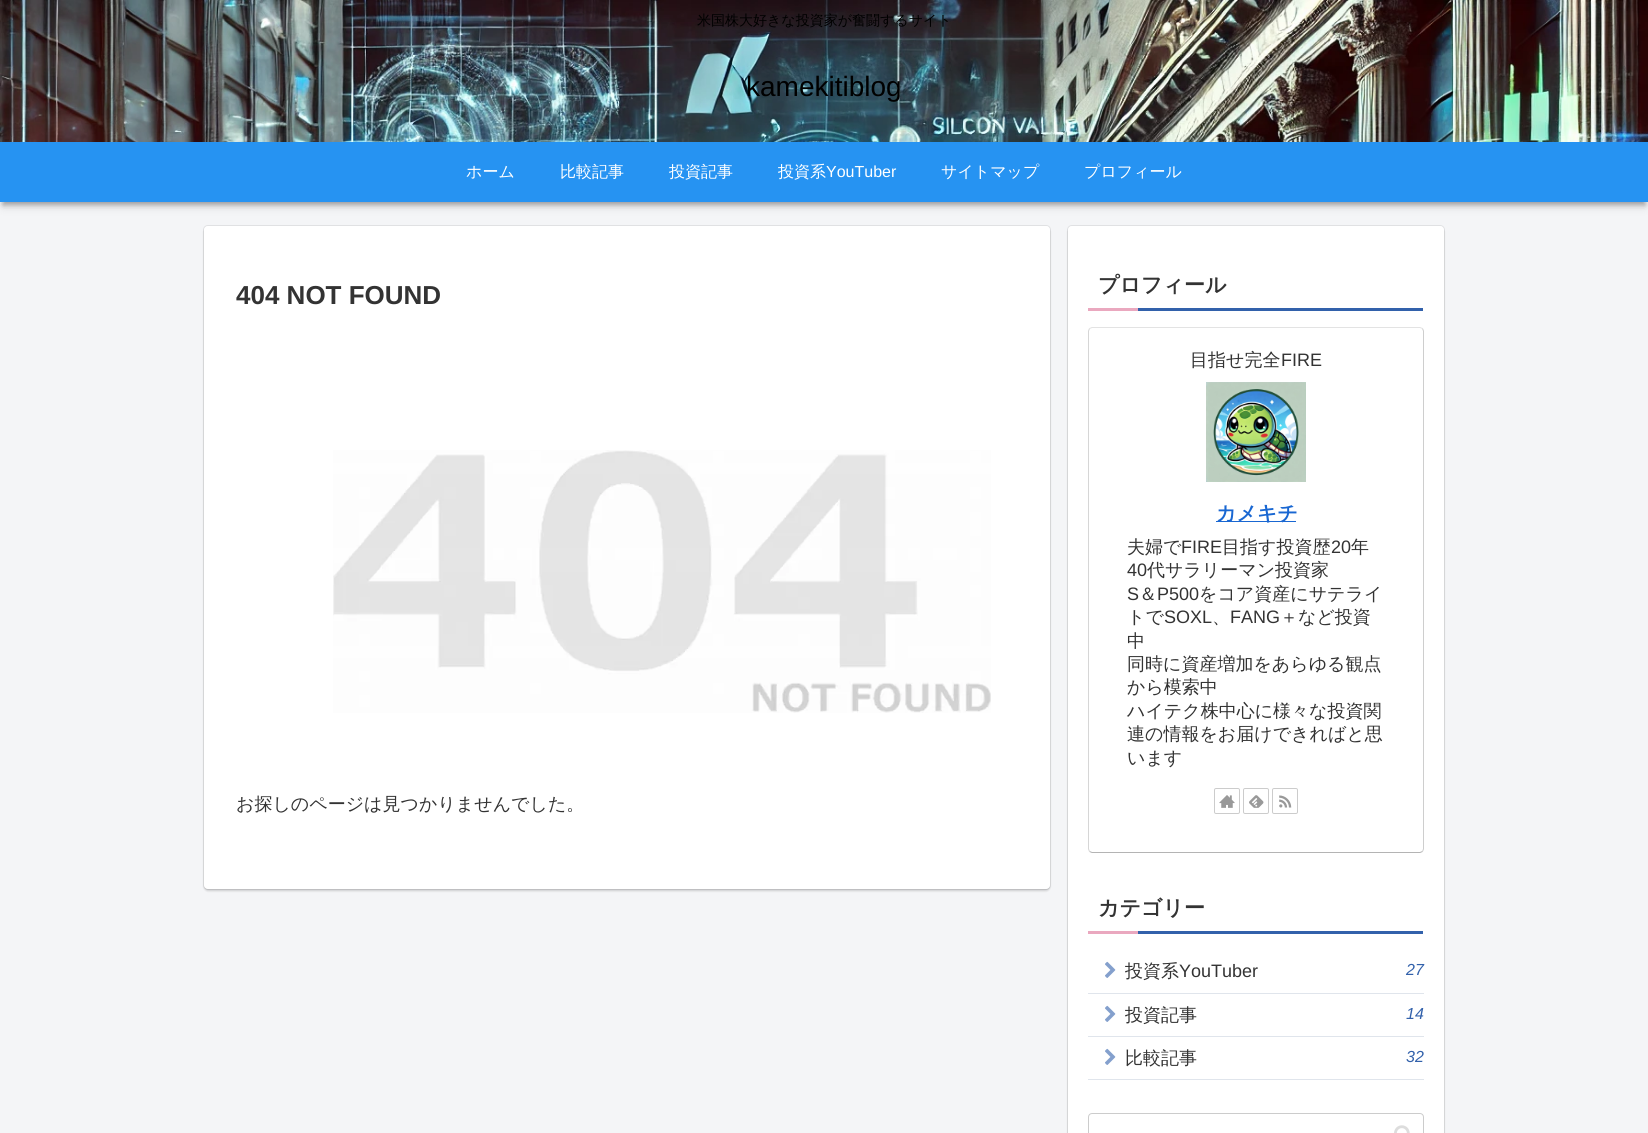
#include <cairo.h>
#include <math.h>
#include <stddef.h>

static cairo_t *c;
static void C(unsigned color){cairo_set_source_rgb(c, (color >> 16) / 255.0, (color >> 8 & 255) / 255.0, (color & 255) / 255.0);}
static void F(const char *family, double size, int italic, int bold){cairo_select_font_face(c, family, italic ? CAIRO_FONT_SLANT_ITALIC : CAIRO_FONT_SLANT_NORMAL,bold ? CAIRO_FONT_WEIGHT_BOLD : CAIRO_FONT_WEIGHT_NORMAL);cairo_set_font_size(c, size);}
static void T(double x, double y, const char *s){cairo_move_to(c, x, y);cairo_show_text(c, s);}
static void R(double x, double y, double w, double h){cairo_rectangle(c, x, y, w, h);cairo_fill(c);}
static void Q(double x, double y, double w, double h, double r){cairo_new_sub_path(c);cairo_arc(c, x + w - r, y + h - r, r, 0, M_PI / 2);cairo_arc(c, x + r, y + h - r, r, M_PI / 2, M_PI);cairo_arc(c, x + r, y + r, r, M_PI, 1.5 * M_PI);cairo_arc(c, x + w - r, y + r, r, 1.5 * M_PI, 2 * M_PI);cairo_close_path(c);}
static void S(double x, double y, double w, double h, double r, double blur, double alpha){cairo_push_group_with_content(c, CAIRO_CONTENT_ALPHA);cairo_set_operator(c, CAIRO_OPERATOR_SOURCE);for (int i = 15; i >= -15 && fmin(w, h) + blur * i / 3 > 0; i -= 2) {double e = blur * i / 6;cairo_set_source_rgba(c, 0, 0, 0, alpha * erfc((i - 1) / 8.5) / 2);Q(x - e, y - e, w + 2 * e, h + 2 * e, fmax(0, fmin(r + e + blur * .6, fmin(w, h) / 2 + e)));cairo_fill(c);}cairo_pattern_t *soft = cairo_pop_group(c);cairo_mask(c, soft);cairo_pattern_destroy(soft);}
static void I(const char *path, double x, double y, double w, double h){cairo_surface_t *image = cairo_image_surface_create_from_png(path);cairo_save(c);cairo_set_source_surface(c, image, x, y);cairo_rectangle(c, x, y, w, h);cairo_fill(c);cairo_restore(c);cairo_surface_destroy(image);}
int main(void) {
cairo_surface_t *surface = cairo_image_surface_create(CAIRO_FORMAT_RGB24, 1648, 1133);
c = cairo_create(surface);
cairo_font_options_t *options = cairo_font_options_create();
cairo_font_options_set_hint_metrics(options, CAIRO_HINT_METRICS_OFF);
cairo_font_options_set_hint_style(options, CAIRO_HINT_STYLE_NONE);
cairo_set_font_options(c, options);
cairo_set_miter_limit(c, 4);
C(0xf4f5f7);
cairo_paint(c);
C(0x000000);
S(3,9,1642,196,0,5,.18);
S(3,9,1642,196,0,2.5,.24);
I("1.png",0,0,1648,142);
F("WenQuanYi Zen Hei Medium",14,0,0);
C(0x000000);
T(697,25,"米国株大好きな投資家が奮闘するサイト");
F("Liberation Sans",28,0,0);
T(746,96,"kamekitiblog");
C(0x2693f2);
R(0,142,1648,60);
F("WenQuanYi Zen Hei Medium",16,0,0);
C(0xffffff);
T(466,177,"ホーム");
T(560,177,"比較記事");
T(669,177,"投資記事");
cairo_save(c);
cairo_rectangle(c,778,158,118,29);
cairo_clip(c);
T(778,177,"投資系");
cairo_restore(c);
F("Liberation Sans",16,0,0);
T(826,177,"YouTuber");
F("WenQuanYi Zen Hei Medium",16,0,0);
T(941,177,"サイトマップ");
T(1084,177,"プロフィール");
Q(203.5,225.5,847,664,4.5);
C(0xe0e1e3);
cairo_set_line_width(c,1);
cairo_stroke(c);
C(0x000000);
S(204,228,846,663,4,1,.16);
C(0xffffff);
Q(204,226,846,663,4);
cairo_fill(c);
F("Liberation Sans",26,0,1);
C(0x333333);
T(236,304,"404 NOT FOUND");
I("2.png",333,450,658,263);
F("WenQuanYi Zen Hei Medium",18,0,0);
T(236,810,"お探しのページは見つかりませんでした。");
Q(1067.5,225.5,377,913,4.5);
C(0xe0e1e3);
cairo_stroke(c);
C(0x000000);
S(1068,228,376,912,4,1,.16);
C(0xffffff);
Q(1068,226,376,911,4);
cairo_fill(c);
C(0x3261ab);
R(1138,308,285,3);
F("WenQuanYi Zen Hei",21,0,1);
C(0x333333);
T(1098,292,"プロフィール");
C(0xeaa8bf);
R(1088,308,50,3);
cairo_new_path(c);
cairo_move_to(c,1089.5,328.5);
cairo_line_to(c,1092,327.5);
cairo_line_to(c,1420,327.5);
cairo_line_to(c,1422.5,328.5);
C(0xe3e3e3);
cairo_stroke(c);
cairo_new_path(c);
cairo_move_to(c,1422.5,328.5);
cairo_line_to(c,1423.5,331);
cairo_line_to(c,1423.5,849);
cairo_line_to(c,1422.5,851.5);
C(0xcecece);
cairo_stroke(c);
cairo_new_path(c);
cairo_move_to(c,1422.5,851.5);
cairo_line_to(c,1420,852.5);
cairo_line_to(c,1092,852.5);
cairo_line_to(c,1089.5,851.5);
C(0xb4b4b4);
cairo_stroke(c);
cairo_new_path(c);
cairo_move_to(c,1089.5,851.5);
cairo_line_to(c,1088.5,849);
cairo_line_to(c,1088.5,331);
cairo_line_to(c,1089.5,328.5);
C(0xd6d6d6);
cairo_stroke(c);
F("WenQuanYi Zen Hei Medium",18,0,0);
C(0x333333);
T(1190,366,"目指せ完全");
F("Liberation Sans",18,0,0);
T(1281,366,"FIRE");
I("3.png",1206,382,100,100);
C(0x1967d2);
R(1216,521,80,1);
F("WenQuanYi Zen Hei",20,0,1);
T(1216,520,"カメキチ");
F("WenQuanYi Zen Hei Medium",18,0,0);
C(0x333333);
T(1127,553,"夫婦で");
F("Liberation Sans",18,0,0);
T(1181,553,"FIRE");
F("WenQuanYi Zen Hei Medium",18,0,0);
T(1222,553,"目指す投資歴");
F("Liberation Sans",18,0,0);
T(1331,553,"20");
F("WenQuanYi Zen Hei Medium",18,0,0);
T(1351,553,"年");
F("Liberation Sans",18,0,0);
T(1127,576,"40");
F("WenQuanYi Zen Hei Medium",18,0,0);
T(1147,576,"代サラリーマン投資家");
F("Liberation Sans",18,0,0);
T(1127,600,"S");
F("WenQuanYi Zen Hei Medium",18,0,0);
T(1139,600,"＆");
F("Liberation Sans",18,0,0);
T(1157,600,"P500");
F("WenQuanYi Zen Hei Medium",18,0,0);
T(1199,600,"をコア資産にサテライ");
T(1127,623,"トで");
F("Liberation Sans",18,0,0);
T(1164,623,"SOXL");
F("WenQuanYi Zen Hei Medium",18,0,0);
T(1212,623,"、");
F("Liberation Sans",18,0,0);
T(1230,623,"FANG");
F("WenQuanYi Zen Hei Medium",18,0,0);
T(1280,623,"＋など投資");
T(1127,647,"中");
T(1127,670,"同時に資産増加をあらゆる観点");
T(1127,693,"から模索中");
T(1127,717,"ハイテク株中心に様々な投資関");
T(1127,740,"連の情報をお届けできればと思");
T(1127,764,"います");
Q(1214.5,788.5,25,25,1.5);
C(0xcccccc);
cairo_stroke(c);
I("4.png",1219,795,16,13);
Q(1243.5,788.5,25,25,1.5);
cairo_stroke(c);
I("5.png",1249,795,15,13);
Q(1272.5,788.5,25,25,1.5);
cairo_stroke(c);
I("6.png",1279,795,13,13);
C(0x3261ab);
R(1138,931,285,3);
F("WenQuanYi Zen Hei",21,0,1);
C(0x333333);
T(1098,915,"カテゴリー");
C(0xeaa8bf);
R(1088,931,50,3);
C(0xe0e5ec);
R(1088,993,336,1);
I("7.png",1105,961,11,17);
F("WenQuanYi Zen Hei Medium",18,0,0);
C(0x333333);
T(1125,977,"投資系");
F("Liberation Sans",18,0,0);
T(1179,977,"YouTuber");
F("Liberation Sans",16,1,0);
C(0x3261ab);
T(1406,975,"27");
C(0xe0e5ec);
R(1088,1036,336,1);
I("7.png",1105,1005,11,17);
F("WenQuanYi Zen Hei Medium",18,0,0);
C(0x333333);
T(1125,1021,"投資記事");
F("Liberation Sans",16,1,0);
C(0x3261ab);
T(1406,1019,"14");
C(0xe0e5ec);
R(1088,1079,336,1);
I("7.png",1105,1048,11,17);
F("WenQuanYi Zen Hei Medium",18,0,0);
C(0x333333);
T(1125,1064,"比較記事");
F("Liberation Sans",16,1,0);
C(0x3261ab);
T(1406,1062,"32");
Q(1088.5,1113.5,335,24,3.5);
C(0xcccccc);
cairo_stroke(c);
I("8.png",1394,1125,16,8);
cairo_surface_write_to_png(surface, "o.png");
cairo_font_options_destroy(options);
cairo_destroy(c);
cairo_surface_destroy(surface);
return 0;
}
